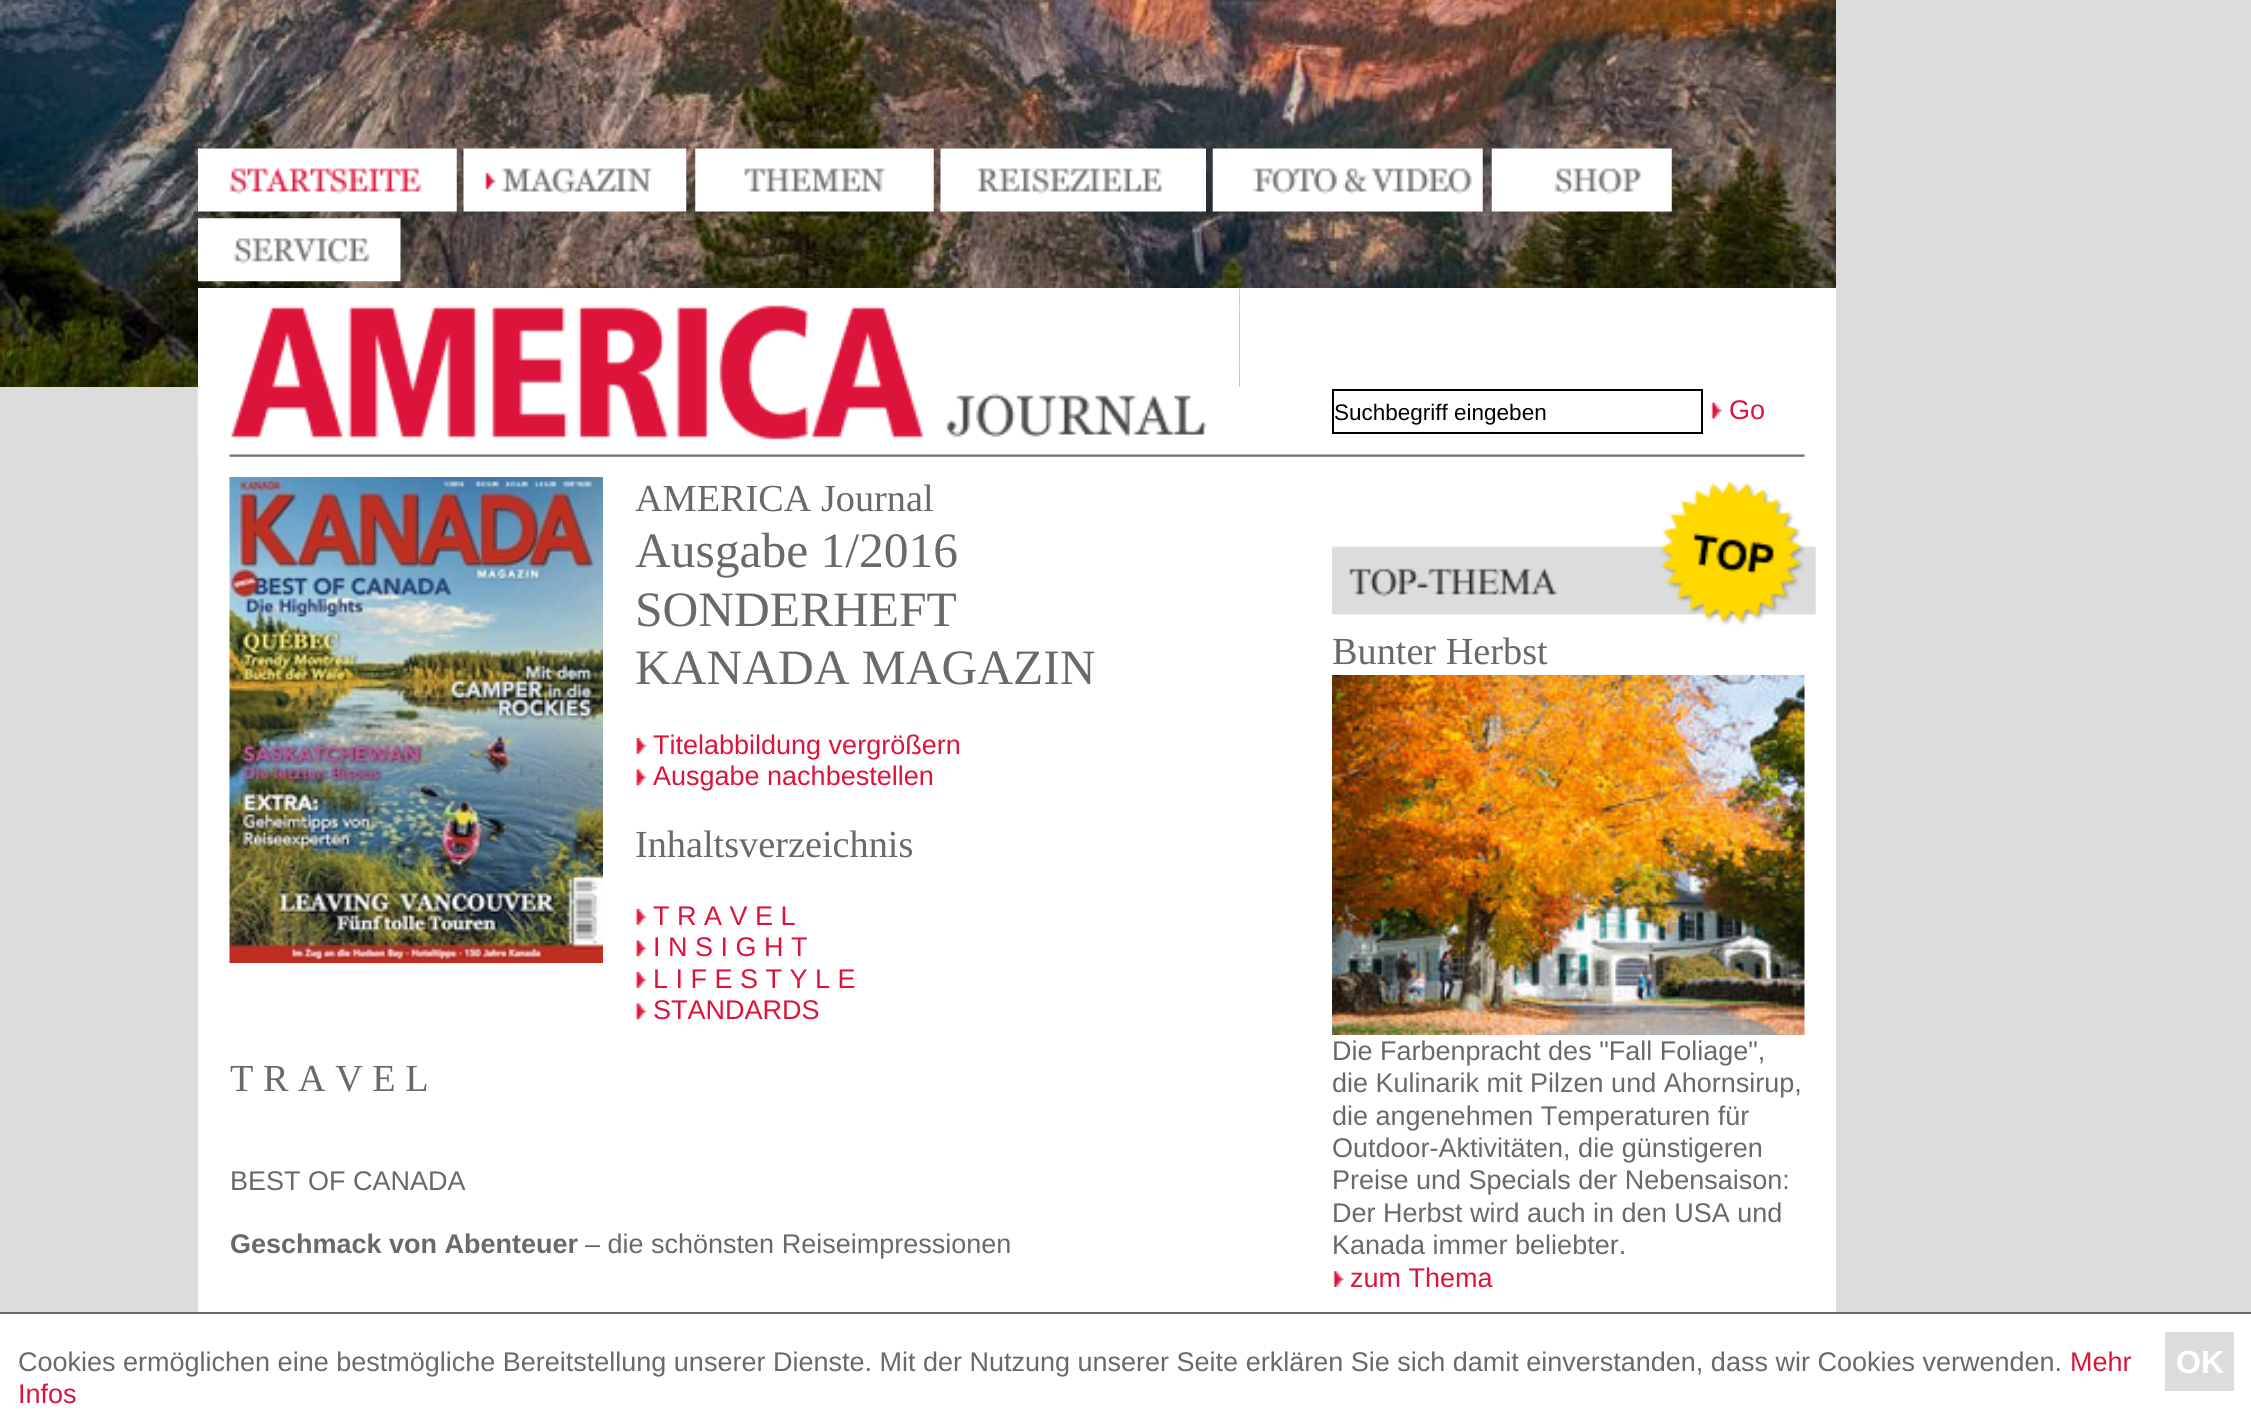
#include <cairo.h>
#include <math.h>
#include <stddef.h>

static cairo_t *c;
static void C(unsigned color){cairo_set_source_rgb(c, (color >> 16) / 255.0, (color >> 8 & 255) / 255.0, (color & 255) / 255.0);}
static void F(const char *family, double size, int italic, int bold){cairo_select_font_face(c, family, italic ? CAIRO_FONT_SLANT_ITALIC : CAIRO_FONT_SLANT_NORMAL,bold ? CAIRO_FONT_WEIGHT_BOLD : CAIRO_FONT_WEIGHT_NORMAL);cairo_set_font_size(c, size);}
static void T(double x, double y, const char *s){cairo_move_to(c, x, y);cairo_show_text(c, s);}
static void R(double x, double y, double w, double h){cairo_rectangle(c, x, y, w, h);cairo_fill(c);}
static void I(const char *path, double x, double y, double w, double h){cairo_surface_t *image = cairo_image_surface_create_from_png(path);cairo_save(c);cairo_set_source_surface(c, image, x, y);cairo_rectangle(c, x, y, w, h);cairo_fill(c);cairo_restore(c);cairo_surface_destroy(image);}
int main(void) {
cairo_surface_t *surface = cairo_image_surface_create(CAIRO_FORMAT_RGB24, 2251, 1427);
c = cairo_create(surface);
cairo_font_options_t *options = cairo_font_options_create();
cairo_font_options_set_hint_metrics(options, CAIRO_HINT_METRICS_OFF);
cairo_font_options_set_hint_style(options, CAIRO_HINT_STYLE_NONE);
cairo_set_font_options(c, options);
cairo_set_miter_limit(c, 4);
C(0xdcdcdc);
cairo_paint(c);
I("1.png",0,0,1836,387);
I("2.png",198,148,259,64);
I("3.png",463,148,224,64);
I("4.png",695,148,239,64);
I("5.png",940,148,266,64);
I("6.png",1212,148,271,64);
I("7.png",1491,148,181,64);
I("8.png",198,218,203,64);
I("12.png",197,387,1639,925);
I("9.png",198,288,1042,158);
C(0xffffff);
R(1240,288,596,99);
cairo_rectangle(c,1333,390,369,43);
C(0x000000);
cairo_stroke(c);
F("Liberation Sans",22.5,0,0);
T(1334,420,"Suchbegriff eingeben");
I("10.png",1711,402,11,17);
F("Liberation Sans",27,0,0);
C(0xdc143c);
T(1729,419,"Go");
I("11.png",198,446,1608,11);
I("13.png",229,477,374,486);
F("Liberation Serif",38.25,0,0);
C(0x696969);
T(635,511,"AMERICA Journal");
F("Liberation Serif",49.5,0,0);
T(635,567,"Ausgabe 1/2016");
T(635,626,"SONDERHEFT");
T(635,684,"KANADA MAGAZIN");
I("14.png",636,738,11,16);
F("Liberation Sans",27,0,0);
C(0xdc143c);
T(653,754,"Titelabbildung vergrößern");
I("15.png",636,769,11,17);
T(653,785,"Ausgabe nachbestellen");
F("Liberation Serif",38.25,0,0);
C(0x696969);
T(635,857,"Inhaltsverzeichnis");
I("14.png",636,909,11,16);
F("Liberation Sans",27,0,0);
C(0xdc143c);
T(653,925,"T R A V E L");
I("15.png",636,940,11,17);
T(653,956,"I N S I G H T");
I("14.png",636,972,11,16);
T(653,988,"L I F E S T Y L E");
I("15.png",636,1003,11,17);
T(653,1019,"STANDARDS");
F("Liberation Serif",38.25,0,0);
C(0x696969);
T(230,1091,"T R A V E L");
F("Liberation Sans",27,0,0);
T(230,1190,"BEST OF CANADA");
F("Liberation Sans",27,0,1);
T(230,1253,"Geschmack von Abenteuer");
F("Liberation Sans",27,0,0);
T(585,1253,"– die schönsten Reiseimpressionen");
I("16.png",1332,481,484,145);
F("Liberation Serif",38.25,0,0);
T(1332,664,"Bunter Herbst");
I("17.png",1332,675,473,360);
F("Liberation Sans",27,0,0);
T(1332,1060,"Die Farbenpracht des \"Fall Foliage\",");
T(1332,1092,"die Kulinarik mit Pilzen und Ahornsirup,");
T(1332,1125,"die angenehmen Temperaturen für");
T(1332,1157,"Outdoor-Aktivitäten, die günstigeren");
T(1332,1189,"Preise und Specials der Nebensaison:");
T(1332,1222,"Der Herbst wird auch in den USA und");
T(1332,1254,"Kanada immer beliebter.");
I("18.png",1333,1271,11,16);
C(0xdc143c);
T(1350,1287,"zum Thema");
C(0xffffff);
R(0,1314,2251,113);
C(0x696969);
R(0,1312,2251,2);
T(18,1371,"Cookies ermöglichen eine bestmögliche Bereitstellung unserer Dienste. Mit der Nutzung unserer Seite erklären Sie sich damit einverstanden, dass wir Cookies verwenden.");
C(0xdc143c);
T(2070,1371,"Mehr");
T(18,1403,"Infos");
C(0xdcdcdc);
R(2165,1332,69,59);
F("Liberation Sans",32,0,1);
C(0xffffff);
T(2176,1373,"OK");
cairo_surface_write_to_png(surface, "o.png");
cairo_font_options_destroy(options);
cairo_destroy(c);
cairo_surface_destroy(surface);
return 0;
}
